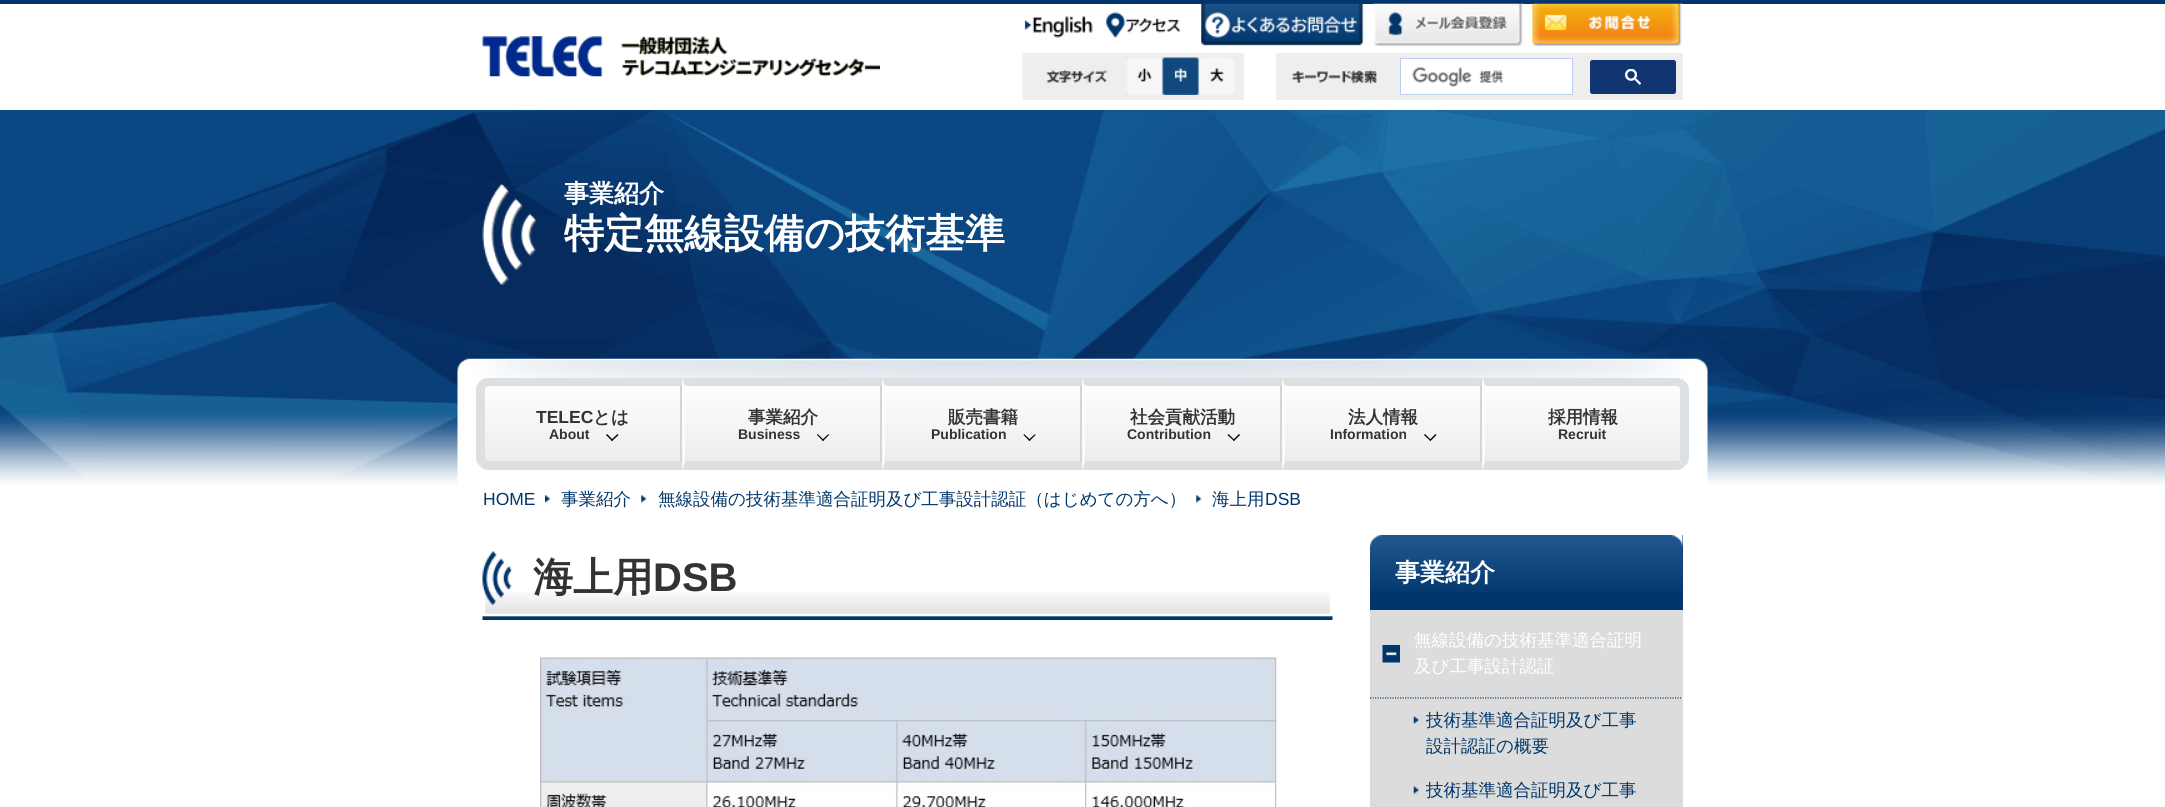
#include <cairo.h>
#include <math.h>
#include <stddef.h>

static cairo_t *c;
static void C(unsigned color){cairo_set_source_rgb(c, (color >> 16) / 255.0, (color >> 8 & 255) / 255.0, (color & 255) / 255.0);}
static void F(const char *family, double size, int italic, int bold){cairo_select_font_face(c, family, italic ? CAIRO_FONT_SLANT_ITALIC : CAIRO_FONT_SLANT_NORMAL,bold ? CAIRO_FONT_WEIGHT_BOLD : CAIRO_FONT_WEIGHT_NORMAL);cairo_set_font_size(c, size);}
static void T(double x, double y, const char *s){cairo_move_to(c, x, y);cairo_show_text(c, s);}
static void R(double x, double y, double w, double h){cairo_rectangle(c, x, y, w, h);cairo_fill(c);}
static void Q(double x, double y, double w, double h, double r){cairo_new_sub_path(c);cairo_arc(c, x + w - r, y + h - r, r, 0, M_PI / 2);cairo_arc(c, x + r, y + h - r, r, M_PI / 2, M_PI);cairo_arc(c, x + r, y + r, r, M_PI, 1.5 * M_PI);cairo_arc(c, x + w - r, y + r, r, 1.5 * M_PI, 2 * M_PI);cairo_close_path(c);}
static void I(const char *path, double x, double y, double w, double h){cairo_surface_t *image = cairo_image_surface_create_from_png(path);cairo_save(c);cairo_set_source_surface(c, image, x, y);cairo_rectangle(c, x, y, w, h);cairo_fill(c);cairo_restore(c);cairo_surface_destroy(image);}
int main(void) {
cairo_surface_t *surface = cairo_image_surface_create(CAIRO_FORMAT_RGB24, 2165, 807);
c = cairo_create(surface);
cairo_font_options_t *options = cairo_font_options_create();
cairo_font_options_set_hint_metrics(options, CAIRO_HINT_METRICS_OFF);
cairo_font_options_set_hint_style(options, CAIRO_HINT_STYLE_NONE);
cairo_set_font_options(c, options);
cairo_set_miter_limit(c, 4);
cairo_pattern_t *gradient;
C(0xffffff);
cairo_paint(c);
I("1.png",0,110,2165,376);
C(0x00366c);
R(0,0,2165,4);
I("2.png",482,36,398,41);
I("3.png",1024,16,69,22);
I("4.png",1106,12,75,26);
I("5.png",1201,3,163,43);
I("6.png",1373,3,151,44);
I("7.png",1532,3,151,44);
C(0xeeeeee);
R(1023,53,221,47);
I("8.png",1022,55,86,44);
I("9.png",1126,57,37,38);
I("10.png",1162,57,37,38);
I("11.png",1198,57,37,38);
R(1276,53,407,47);
I("12.png",1292,70,86,14);
C(0xffffff);
cairo_rectangle(c,1400.5,58.5,172,36);
cairo_fill_preserve(c);
C(0xbccdf0);
cairo_set_line_width(c,1);
cairo_stroke(c);
I("13.png",1412,67,92,20);
C(0x113571);
Q(1590.5,60.5,85,33,2);
cairo_fill_preserve(c);
cairo_stroke(c);
I("14.png",1625,69,16,16);
I("15.png",482,183,55,102);
F("WenQuanYi Zen Hei",25,0,1);
C(0xffffff);
T(564,202,"事業紹介");
F("WenQuanYi Zen Hei",40,0,1);
T(564,247,"特定無線設備の技術基準");
I("16.png",457,358,1251,128);
gradient = cairo_pattern_create_linear(583,386,583,461);
cairo_pattern_add_color_stop_rgba(gradient,0,0.996,0.996,0.996,1);
cairo_pattern_add_color_stop_rgba(gradient,1,0.929,0.929,0.929,1);
cairo_set_source(c,gradient);
cairo_pattern_destroy(gradient);
cairo_new_path(c);
cairo_move_to(c,489,386);
cairo_line_to(c,680,386);
cairo_line_to(c,680,461);
cairo_line_to(c,489,461);
cairo_curve_to(c,487,461,485,459,485,457);
cairo_line_to(c,485,390);
cairo_curve_to(c,485,388,487,386,489,386);
cairo_close_path(c);
cairo_fill(c);
C(0xdde0e3);
cairo_new_path(c);
cairo_move_to(c,489,378);
cairo_curve_to(c,486,378,482,379,480,381);
cairo_line_to(c,486,387);
cairo_curve_to(c,487,387,488,386,489,386);
cairo_line_to(c,680,386);
cairo_line_to(c,682,378);
cairo_close_path(c);
cairo_fill(c);
C(0xd4d4d4);
cairo_new_path(c);
cairo_move_to(c,682,468);
cairo_line_to(c,682,379);
cairo_line_to(c,680,386);
cairo_line_to(c,680,461);
cairo_close_path(c);
cairo_fill(c);
C(0xdde0e3);
cairo_new_path(c);
cairo_move_to(c,489,470);
cairo_line_to(c,682,470);
cairo_line_to(c,682,468);
cairo_line_to(c,680,461);
cairo_line_to(c,489,461);
cairo_line_to(c,486,460);
cairo_line_to(c,480,466);
cairo_curve_to(c,482,469,486,470,489,470);
cairo_close_path(c);
cairo_fill(c);
cairo_new_path(c);
cairo_move_to(c,476,388);
cairo_curve_to(c,477,385,478,383,480,381);
cairo_line_to(c,486,387);
cairo_curve_to(c,485,388,485,389,485,390);
cairo_line_to(c,485,458);
cairo_curve_to(c,485,459,485,460,486,460);
cairo_line_to(c,480,466);
cairo_curve_to(c,478,465,477,462,476,460);
cairo_close_path(c);
cairo_fill(c);
F("Liberation Sans",17.5,0,1);
C(0x333333);
T(536,423,"TELEC");
F("WenQuanYi Zen Hei",17.5,0,1);
T(593,423,"とは");
F("Liberation Sans",14,0,1);
T(549,439,"About");
C(0x000000);
cairo_new_path(c);
cairo_move_to(c,617.5,434);
cairo_line_to(c,618.5,435);
cairo_line_to(c,612,441);
cairo_line_to(c,611,440);
cairo_close_path(c);
cairo_fill(c);
cairo_new_path(c);
cairo_move_to(c,607,434);
cairo_line_to(c,613,440);
cairo_line_to(c,612,441);
cairo_line_to(c,606,435);
cairo_close_path(c);
cairo_fill(c);
gradient = cairo_pattern_create_linear(783,386,783,461);
cairo_pattern_add_color_stop_rgba(gradient,0,0.996,0.996,0.996,1);
cairo_pattern_add_color_stop_rgba(gradient,1,0.929,0.929,0.929,1);
cairo_set_source(c,gradient);
cairo_pattern_destroy(gradient);
R(685,386,195,75);
C(0xdde0e3);
cairo_new_path(c);
cairo_move_to(c,682,378);
cairo_line_to(c,882,378);
cairo_line_to(c,880,386);
cairo_line_to(c,685,386);
cairo_close_path(c);
cairo_fill(c);
C(0xd4d4d4);
cairo_new_path(c);
cairo_move_to(c,882,378);
cairo_line_to(c,882,470);
cairo_line_to(c,880,461);
cairo_line_to(c,880,386);
cairo_close_path(c);
cairo_fill(c);
C(0xdde0e3);
cairo_new_path(c);
cairo_move_to(c,882,470);
cairo_line_to(c,682,470);
cairo_line_to(c,685,461);
cairo_line_to(c,880,461);
cairo_close_path(c);
cairo_fill(c);
C(0xfcfcfc);
cairo_new_path(c);
cairo_move_to(c,682,470);
cairo_line_to(c,682,378);
cairo_line_to(c,685,386);
cairo_line_to(c,685,461);
cairo_close_path(c);
cairo_fill(c);
F("WenQuanYi Zen Hei",17.5,0,1);
C(0x333333);
T(748,423,"事業紹介");
F("Liberation Sans",14,0,1);
T(738,439,"Business");
C(0x000000);
cairo_new_path(c);
cairo_move_to(c,828.5,434);
cairo_line_to(c,829,435);
cairo_line_to(c,823,441);
cairo_line_to(c,822,440);
cairo_close_path(c);
cairo_fill(c);
cairo_new_path(c);
cairo_move_to(c,817.5,434);
cairo_line_to(c,824,440);
cairo_line_to(c,823,441);
cairo_line_to(c,817,435);
cairo_close_path(c);
cairo_fill(c);
gradient = cairo_pattern_create_linear(983,386,983,461);
cairo_pattern_add_color_stop_rgba(gradient,0,0.996,0.996,0.996,1);
cairo_pattern_add_color_stop_rgba(gradient,1,0.929,0.929,0.929,1);
cairo_set_source(c,gradient);
cairo_pattern_destroy(gradient);
R(885,386,195,75);
C(0xdde0e3);
cairo_new_path(c);
cairo_move_to(c,882,378);
cairo_line_to(c,1082,378);
cairo_line_to(c,1080,386);
cairo_line_to(c,885,386);
cairo_close_path(c);
cairo_fill(c);
C(0xd4d4d4);
cairo_new_path(c);
cairo_move_to(c,1082,378);
cairo_line_to(c,1082,470);
cairo_line_to(c,1080,461);
cairo_line_to(c,1080,386);
cairo_close_path(c);
cairo_fill(c);
C(0xdde0e3);
cairo_new_path(c);
cairo_move_to(c,1082,470);
cairo_line_to(c,882,470);
cairo_line_to(c,885,461);
cairo_line_to(c,1080,461);
cairo_close_path(c);
cairo_fill(c);
C(0xfcfcfc);
cairo_new_path(c);
cairo_move_to(c,882,470);
cairo_line_to(c,882,378);
cairo_line_to(c,885,386);
cairo_line_to(c,885,461);
cairo_close_path(c);
cairo_fill(c);
F("WenQuanYi Zen Hei",17.5,0,1);
C(0x333333);
T(948,423,"販売書籍");
F("Liberation Sans",14,0,1);
T(931,439,"Publication");
C(0x000000);
cairo_new_path(c);
cairo_move_to(c,1035,434);
cairo_line_to(c,1035.5,435);
cairo_line_to(c,1029.5,441);
cairo_line_to(c,1028.5,440);
cairo_close_path(c);
cairo_fill(c);
cairo_new_path(c);
cairo_move_to(c,1024,434);
cairo_line_to(c,1030.5,440);
cairo_line_to(c,1029.5,441);
cairo_line_to(c,1023.5,435);
cairo_close_path(c);
cairo_fill(c);
gradient = cairo_pattern_create_linear(1183,386,1183,461);
cairo_pattern_add_color_stop_rgba(gradient,0,0.996,0.996,0.996,1);
cairo_pattern_add_color_stop_rgba(gradient,1,0.929,0.929,0.929,1);
cairo_set_source(c,gradient);
cairo_pattern_destroy(gradient);
R(1085,386,195,75);
C(0xdde0e3);
cairo_new_path(c);
cairo_move_to(c,1082,378);
cairo_line_to(c,1282,378);
cairo_line_to(c,1280,386);
cairo_line_to(c,1085,386);
cairo_close_path(c);
cairo_fill(c);
C(0xd4d4d4);
cairo_new_path(c);
cairo_move_to(c,1282,378);
cairo_line_to(c,1282,470);
cairo_line_to(c,1280,461);
cairo_line_to(c,1280,386);
cairo_close_path(c);
cairo_fill(c);
C(0xdde0e3);
cairo_new_path(c);
cairo_move_to(c,1282,470);
cairo_line_to(c,1082,470);
cairo_line_to(c,1085,461);
cairo_line_to(c,1280,461);
cairo_close_path(c);
cairo_fill(c);
C(0xfcfcfc);
cairo_new_path(c);
cairo_move_to(c,1082,470);
cairo_line_to(c,1082,378);
cairo_line_to(c,1085,386);
cairo_line_to(c,1085,461);
cairo_close_path(c);
cairo_fill(c);
F("WenQuanYi Zen Hei",17.5,0,1);
C(0x333333);
T(1130,423,"社会貢献活動");
F("Liberation Sans",14,0,1);
T(1127,439,"Contribution");
C(0x000000);
cairo_new_path(c);
cairo_move_to(c,1239,434);
cairo_line_to(c,1240,435);
cairo_line_to(c,1234,441);
cairo_line_to(c,1233,440);
cairo_close_path(c);
cairo_fill(c);
cairo_new_path(c);
cairo_move_to(c,1228.5,434);
cairo_line_to(c,1234.5,440);
cairo_line_to(c,1234,441);
cairo_line_to(c,1227.5,435);
cairo_close_path(c);
cairo_fill(c);
gradient = cairo_pattern_create_linear(1383,386,1383,461);
cairo_pattern_add_color_stop_rgba(gradient,0,0.996,0.996,0.996,1);
cairo_pattern_add_color_stop_rgba(gradient,1,0.929,0.929,0.929,1);
cairo_set_source(c,gradient);
cairo_pattern_destroy(gradient);
R(1285,386,195,75);
C(0xdde0e3);
cairo_new_path(c);
cairo_move_to(c,1282,378);
cairo_line_to(c,1482,378);
cairo_line_to(c,1480,386);
cairo_line_to(c,1285,386);
cairo_close_path(c);
cairo_fill(c);
C(0xd4d4d4);
cairo_new_path(c);
cairo_move_to(c,1482,378);
cairo_line_to(c,1482,470);
cairo_line_to(c,1480,461);
cairo_line_to(c,1480,386);
cairo_close_path(c);
cairo_fill(c);
C(0xdde0e3);
cairo_new_path(c);
cairo_move_to(c,1482,470);
cairo_line_to(c,1282,470);
cairo_line_to(c,1285,461);
cairo_line_to(c,1480,461);
cairo_close_path(c);
cairo_fill(c);
C(0xfcfcfc);
cairo_new_path(c);
cairo_move_to(c,1282,470);
cairo_line_to(c,1282,378);
cairo_line_to(c,1285,386);
cairo_line_to(c,1285,461);
cairo_close_path(c);
cairo_fill(c);
F("WenQuanYi Zen Hei",17.5,0,1);
C(0x333333);
T(1348,423,"法人情報");
F("Liberation Sans",14,0,1);
T(1330,439,"Information");
C(0x000000);
cairo_new_path(c);
cairo_move_to(c,1435.5,434);
cairo_line_to(c,1436.5,435);
cairo_line_to(c,1430.5,441);
cairo_line_to(c,1429.5,440);
cairo_close_path(c);
cairo_fill(c);
cairo_new_path(c);
cairo_move_to(c,1425,434);
cairo_line_to(c,1431,440);
cairo_line_to(c,1430.5,441);
cairo_line_to(c,1424,435);
cairo_close_path(c);
cairo_fill(c);
gradient = cairo_pattern_create_linear(1583,386,1583,461);
cairo_pattern_add_color_stop_rgba(gradient,0,0.996,0.996,0.996,1);
cairo_pattern_add_color_stop_rgba(gradient,1,0.929,0.929,0.929,1);
cairo_set_source(c,gradient);
cairo_pattern_destroy(gradient);
cairo_new_path(c);
cairo_move_to(c,1485,386);
cairo_line_to(c,1676,386);
cairo_curve_to(c,1678,386,1680,388,1680,390);
cairo_line_to(c,1680,457);
cairo_curve_to(c,1680,459,1678,461,1676,461);
cairo_line_to(c,1485,461);
cairo_close_path(c);
cairo_fill(c);
C(0xdde0e3);
cairo_new_path(c);
cairo_move_to(c,1485,386);
cairo_line_to(c,1676,386);
cairo_curve_to(c,1677,386,1678,387,1679,387);
cairo_line_to(c,1685,381);
cairo_curve_to(c,1683,379,1679,378,1676,378);
cairo_line_to(c,1483,378);
cairo_close_path(c);
cairo_fill(c);
cairo_new_path(c);
cairo_move_to(c,1685,381);
cairo_curve_to(c,1687,383,1688,385,1689,388);
cairo_line_to(c,1689,460);
cairo_curve_to(c,1688,462,1687,465,1685,466);
cairo_line_to(c,1679,460);
cairo_curve_to(c,1680,460,1680,459,1680,458);
cairo_line_to(c,1680,390);
cairo_curve_to(c,1680,389,1680,388,1679,387);
cairo_close_path(c);
cairo_fill(c);
cairo_new_path(c);
cairo_move_to(c,1482,470);
cairo_line_to(c,1676,470);
cairo_curve_to(c,1679,470,1683,469,1685,466);
cairo_line_to(c,1679,460);
cairo_line_to(c,1676,461);
cairo_line_to(c,1485,461);
cairo_close_path(c);
cairo_fill(c);
C(0xfcfcfc);
cairo_new_path(c);
cairo_move_to(c,1482,470);
cairo_line_to(c,1485,461);
cairo_line_to(c,1485,386);
cairo_line_to(c,1482,378);
cairo_close_path(c);
cairo_fill(c);
F("WenQuanYi Zen Hei",17.5,0,1);
C(0x333333);
T(1548,423,"採用情報");
F("Liberation Sans",14,0,1);
T(1558,439,"Recruit");
F("Liberation Sans",17.5,0,0);
C(0x00366c);
T(483,505,"HOME");
I("17.png",545,495,5,8);
F("WenQuanYi Zen Hei Medium",17.5,0,0);
T(561,505,"事業紹介");
I("18.png",641,495,6,8);
T(658,505,"無線設備の技術基準適合証明及び工事設計認証（はじめての方へ）");
I("18.png",1196,495,6,8);
T(1212,505,"海上用");
F("Liberation Sans",17.5,0,0);
T(1265,505,"DSB");
I("19.png",482,592,851,28);
I("20.png",482,551,30,54);
F("WenQuanYi Zen Hei",40,0,1);
C(0x333333);
T(533,591,"海上用");
F("Liberation Sans",40,0,1);
T(653,591,"DSB");
I("21.png",540,657,737,150);
C(0xeeeeee);
R(1370,698,313,1);
C(0x00366c);
R(1370,535,313,75);
I("22.png",1370,535,313,57);
F("WenQuanYi Zen Hei",25,0,1);
C(0xffffff);
T(1395,581,"事業紹介");
C(0xdcdcdc);
R(1370,610,313,88);
I("23.png",1382,645,18,18);
F("WenQuanYi Zen Hei Medium",17.5,0,0);
C(0xffffff);
T(1414,646,"無線設備の技術基準適合証明");
T(1414,672,"及び工事設計認証");
cairo_new_path(c);
cairo_move_to(c,1370,698);
cairo_line_to(c,1682.5,698);
C(0x043668);
cairo_set_line_width(c,1.2);
cairo_set_dash(c,(double[]){1.25,1.25},2,0);
cairo_stroke(c);
C(0xdcdcdc);
R(1370,699,313,108);
I("24.png",1413,716,6,8);
C(0x00366c);
T(1426,726,"技術基準適合証明及び工事");
T(1426,752,"設計認証の概要");
I("24.png",1413,786,6,8);
T(1426,796,"技術基準適合証明及び工事");
cairo_surface_write_to_png(surface, "o.png");
cairo_font_options_destroy(options);
cairo_destroy(c);
cairo_surface_destroy(surface);
return 0;
}
